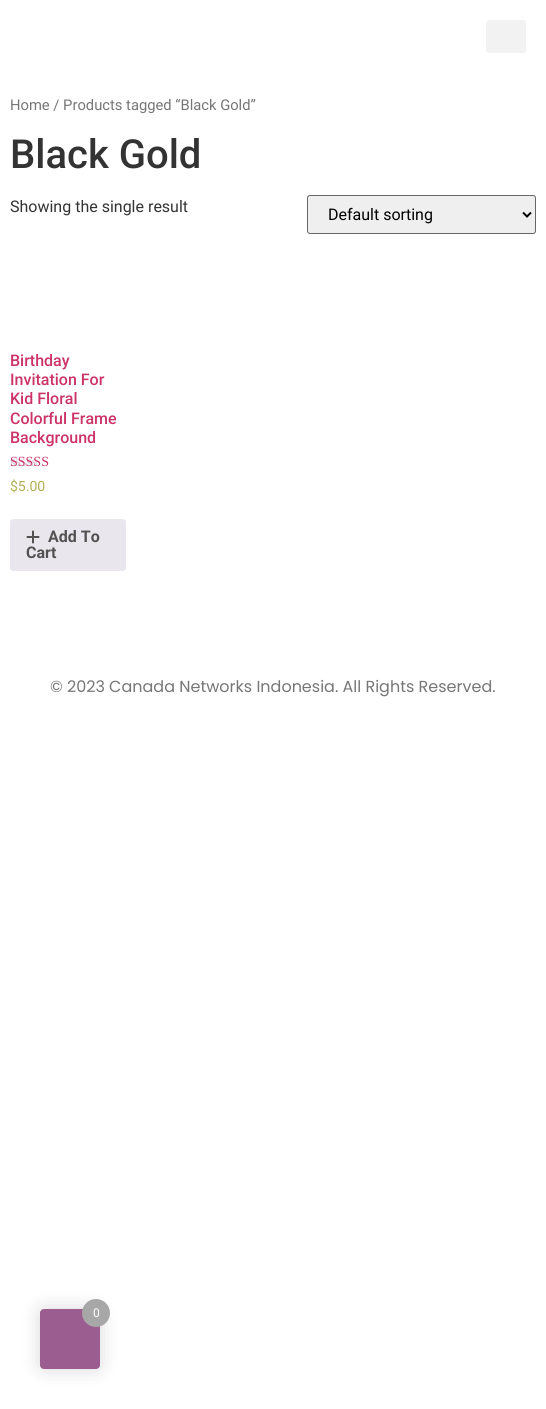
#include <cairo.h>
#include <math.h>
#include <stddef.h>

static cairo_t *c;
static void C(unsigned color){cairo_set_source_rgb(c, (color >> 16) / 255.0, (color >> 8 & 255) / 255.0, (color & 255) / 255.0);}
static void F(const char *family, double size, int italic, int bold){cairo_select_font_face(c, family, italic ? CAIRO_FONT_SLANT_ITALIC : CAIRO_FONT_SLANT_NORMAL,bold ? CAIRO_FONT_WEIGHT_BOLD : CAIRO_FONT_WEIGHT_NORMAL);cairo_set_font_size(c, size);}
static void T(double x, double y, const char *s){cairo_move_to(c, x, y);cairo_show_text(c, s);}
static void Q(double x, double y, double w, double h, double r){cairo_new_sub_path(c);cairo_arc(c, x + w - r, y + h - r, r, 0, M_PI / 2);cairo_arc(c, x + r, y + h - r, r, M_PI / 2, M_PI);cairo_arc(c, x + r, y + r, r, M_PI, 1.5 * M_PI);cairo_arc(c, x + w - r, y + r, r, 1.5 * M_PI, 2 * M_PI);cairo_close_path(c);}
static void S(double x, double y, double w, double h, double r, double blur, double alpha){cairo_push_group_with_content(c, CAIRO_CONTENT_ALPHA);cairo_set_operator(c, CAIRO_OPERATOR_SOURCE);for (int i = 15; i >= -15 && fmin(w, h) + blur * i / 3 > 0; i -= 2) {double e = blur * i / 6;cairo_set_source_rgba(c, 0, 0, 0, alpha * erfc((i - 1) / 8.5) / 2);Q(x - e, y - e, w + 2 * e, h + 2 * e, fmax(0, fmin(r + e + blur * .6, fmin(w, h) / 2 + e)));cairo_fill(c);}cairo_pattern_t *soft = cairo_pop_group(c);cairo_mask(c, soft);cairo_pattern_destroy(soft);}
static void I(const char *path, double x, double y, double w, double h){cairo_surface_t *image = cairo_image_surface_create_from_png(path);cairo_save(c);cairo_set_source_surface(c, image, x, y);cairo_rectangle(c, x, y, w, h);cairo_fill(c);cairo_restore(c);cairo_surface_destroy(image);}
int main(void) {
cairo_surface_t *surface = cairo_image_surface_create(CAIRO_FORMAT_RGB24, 546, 1409);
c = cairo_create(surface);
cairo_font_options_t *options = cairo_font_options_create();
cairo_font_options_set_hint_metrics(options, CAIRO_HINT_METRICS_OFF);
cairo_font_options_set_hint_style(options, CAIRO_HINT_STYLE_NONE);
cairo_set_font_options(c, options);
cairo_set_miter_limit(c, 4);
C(0xffffff);
cairo_paint(c);
C(0xf2f2f2);
Q(486,20,40,33,3);
cairo_fill(c);
F("Roboto",14.75,0,0);
C(0x767676);
T(10,110,"Home / Products tagged “Black Gold”");
F("Roboto Medium",40,0,0);
C(0x333333);
T(10,168,"Black Gold");
F("Roboto",16,0,0);
T(10,212,"Showing the single result");
C(0xefefef);
Q(307.5,195.5,228,38,2.5);
cairo_fill_preserve(c);
C(0x666666);
cairo_set_line_width(c,1);
cairo_stroke(c);
cairo_new_path(c);
cairo_move_to(c,523,212.5);
cairo_line_to(c,527,216.5);
cairo_line_to(c,531,212.5);
C(0x000000);
cairo_set_line_width(c,2);
cairo_stroke(c);
T(328,220,"Default sorting");
F("Roboto Medium",16,0,0);
C(0xcc3366);
T(10,366,"Birthday");
T(10,385,"Invitation For");
T(10,404,"Kid Floral");
T(10,424,"Colorful Frame");
T(10,443,"Background");
F("Liberation Serif",14,0,0);
C(0xcfc8d8);
T(10,466,"sssss");
C(0xcc3366);
T(10,466,"SSSSS");
F("Roboto",14,0,0);
C(0xb3af54);
T(10,491,"$5.00");
C(0xe9e6ed);
Q(10,519,116,52,3);
cairo_fill(c);
I("1.png",26,530,14,14);
F("Roboto",16,0,1);
C(0x515151);
T(48,542,"Add To");
T(26,558,"Cart");
F("Poppins",16,0,0);
C(0x767676);
T(50,692,"© 2023 Canada Networks Indonesia. All Rights Reserved.");
C(0x000000);
S(40,1309,60,60,4,10,.15);
C(0x9b5c8f);
Q(40,1309,60,60,4);
cairo_fill(c);
C(0xa7a7a7);
cairo_arc(c,96,1313,14,0,2 * M_PI);
cairo_fill(c);
F("Roboto",12,0,0);
C(0xffffff);
T(93,1317,"0");
cairo_surface_write_to_png(surface, "o.png");
cairo_font_options_destroy(options);
cairo_destroy(c);
cairo_surface_destroy(surface);
return 0;
}
